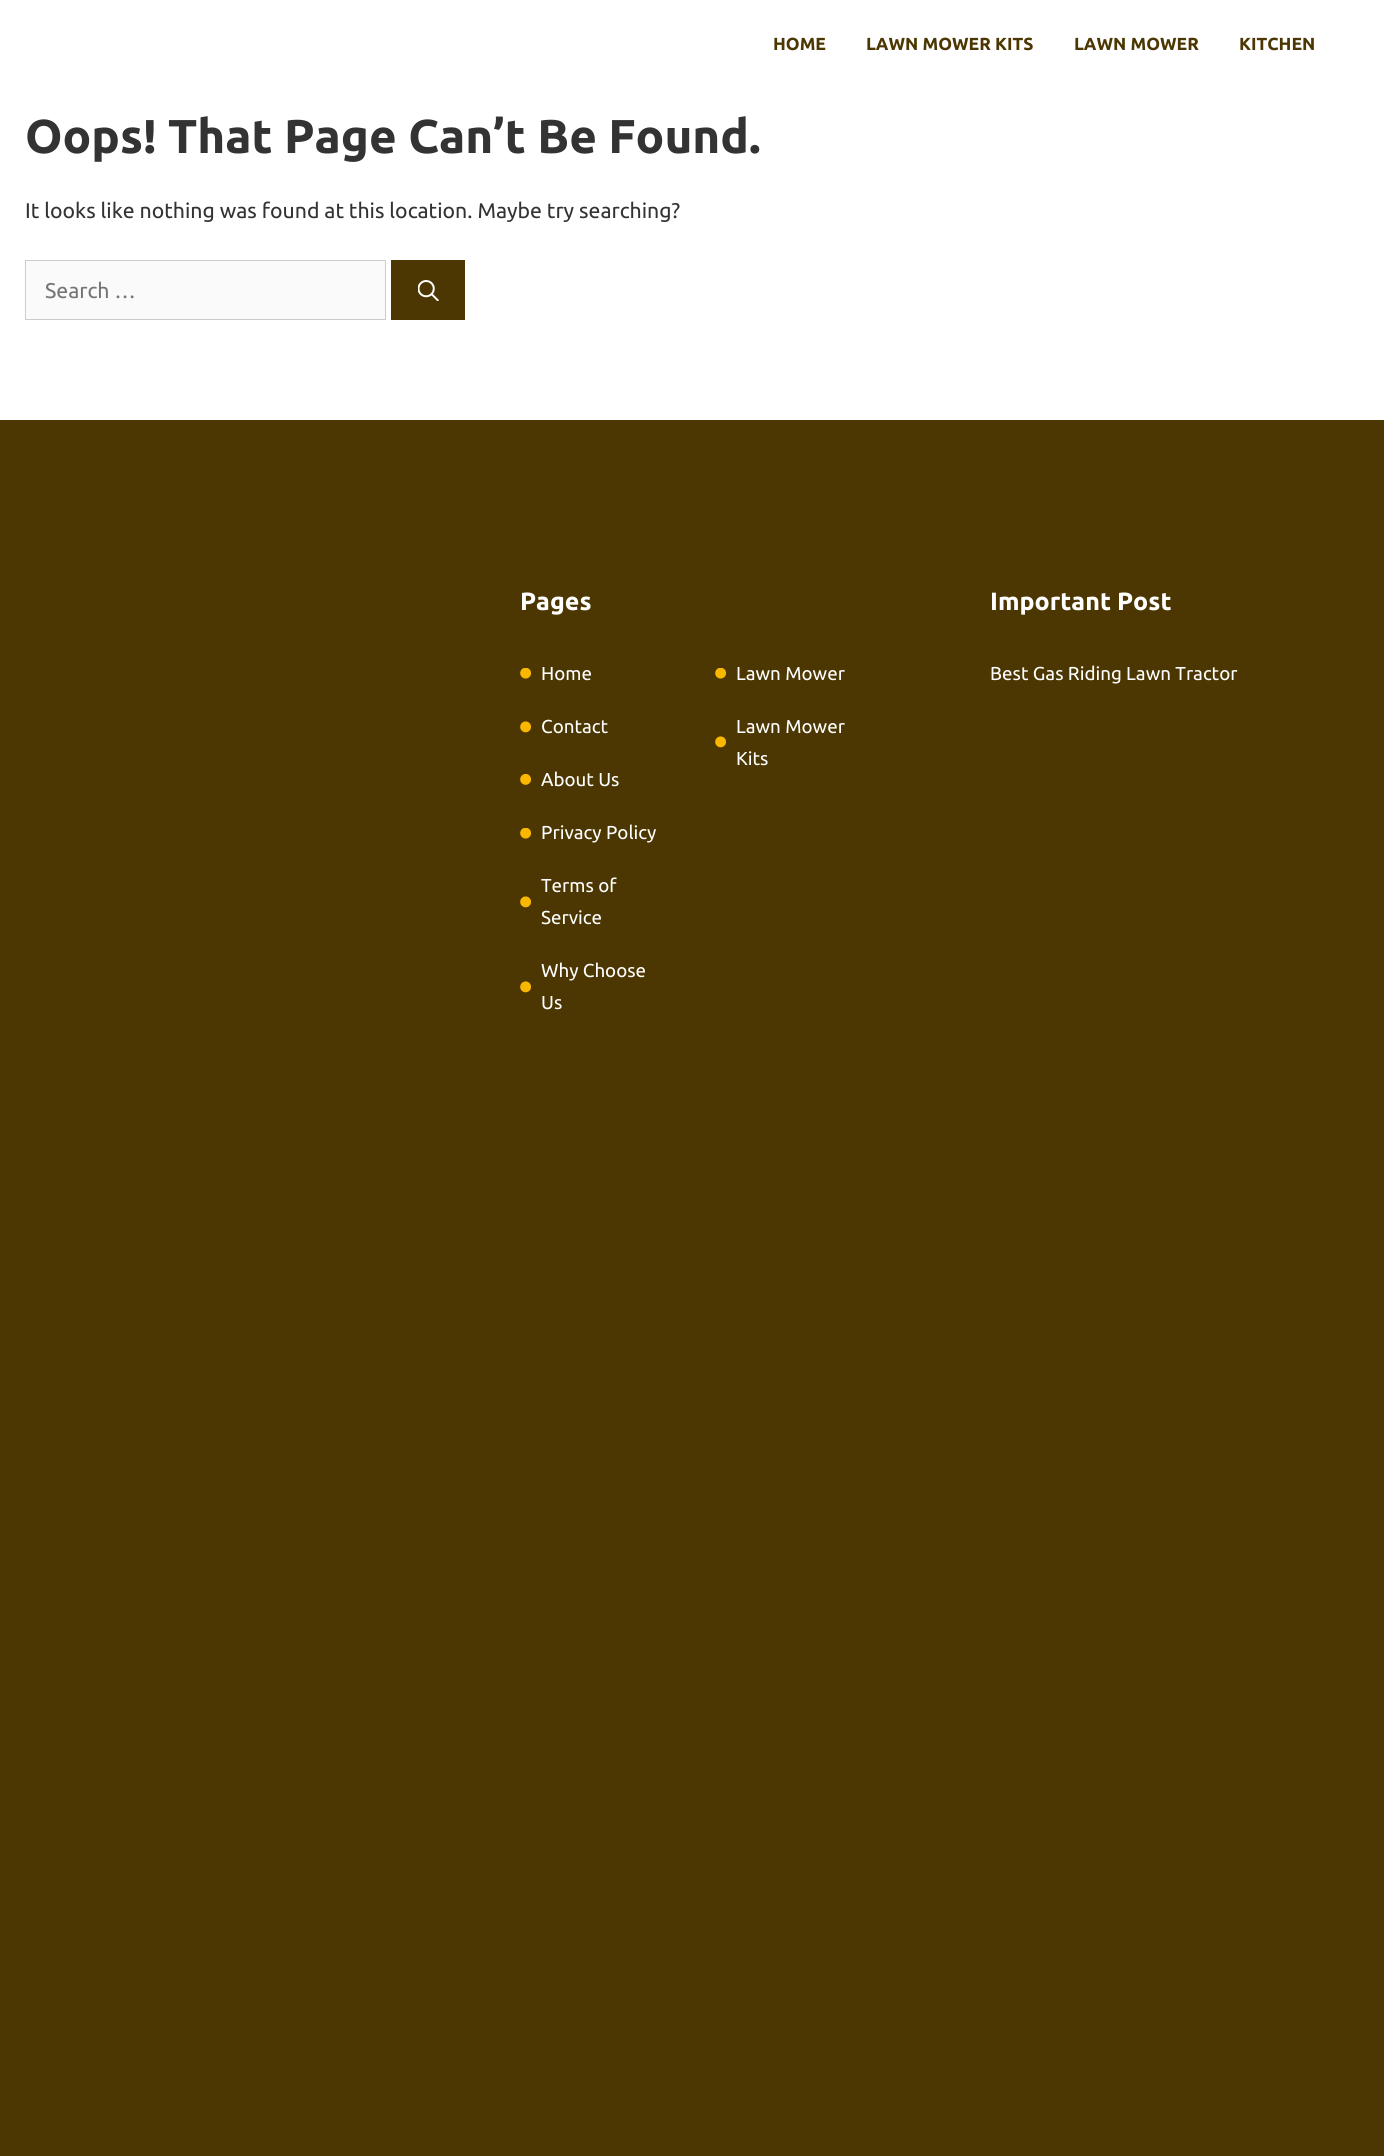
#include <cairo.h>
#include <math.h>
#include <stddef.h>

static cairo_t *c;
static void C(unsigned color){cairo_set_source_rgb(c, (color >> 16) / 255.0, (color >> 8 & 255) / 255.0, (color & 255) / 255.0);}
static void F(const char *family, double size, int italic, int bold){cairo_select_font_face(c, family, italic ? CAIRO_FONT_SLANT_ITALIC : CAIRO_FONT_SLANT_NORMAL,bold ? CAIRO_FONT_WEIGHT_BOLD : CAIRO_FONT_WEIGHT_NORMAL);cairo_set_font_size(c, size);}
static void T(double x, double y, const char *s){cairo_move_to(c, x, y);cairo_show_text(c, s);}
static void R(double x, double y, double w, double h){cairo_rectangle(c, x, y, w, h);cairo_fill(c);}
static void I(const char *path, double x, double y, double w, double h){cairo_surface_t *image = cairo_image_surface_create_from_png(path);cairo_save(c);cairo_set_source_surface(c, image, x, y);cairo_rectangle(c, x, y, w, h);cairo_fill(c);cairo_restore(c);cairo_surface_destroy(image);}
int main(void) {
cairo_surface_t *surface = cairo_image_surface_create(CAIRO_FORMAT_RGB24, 1384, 2156);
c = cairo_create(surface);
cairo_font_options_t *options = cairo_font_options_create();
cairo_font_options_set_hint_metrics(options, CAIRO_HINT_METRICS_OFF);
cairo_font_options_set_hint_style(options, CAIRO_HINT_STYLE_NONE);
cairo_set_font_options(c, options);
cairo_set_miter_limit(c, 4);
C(0xffffff);
cairo_paint(c);
F("Ubuntu",17.5,0,1);
C(0x4c3702);
T(773,50,"HOME");
T(866,50,"LAWN MOWER KITS");
T(1074,50,"LAWN MOWER");
T(1239,50,"KITCHEN");
F("Ubuntu",47.5,0,1);
C(0x333333);
T(25,153,"Oops! That Page Can’t Be Found.");
F("Ubuntu",21.25,0,0);
T(25,218,"It looks like nothing was found at this location. Maybe try searching?");
C(0xfafafa);
cairo_rectangle(c,25.5,260.5,360,59);
cairo_fill_preserve(c);
C(0xcccccc);
cairo_set_line_width(c,1);
cairo_stroke(c);
C(0x757575);
T(45,298,"Search …");
C(0x4c3702);
R(391,260,74,60);
I("1.png",418,280,21,21);
R(0,420,1384,1736);
F("Ubuntu",25,0,1);
C(0xffffff);
T(520,610,"Pages");
I("2.png",520,668,11,11);
F("Ubuntu",18.75,0,0);
T(541,680,"Home");
I("3.png",520,721,11,12);
T(541,733,"Contact");
I("4.png",520,774,11,11);
T(541,786,"About Us");
I("2.png",520,828,11,11);
T(541,839,"Privacy Policy");
I("3.png",520,896,11,12);
T(541,892,"Terms of");
T(541,924,"Service");
I("3.png",520,981,11,12);
T(541,977,"Why Choose");
T(541,1009,"Us");
I("2.png",715,668,11,11);
T(736,680,"Lawn Mower");
I("3.png",715,736,11,12);
T(736,733,"Lawn Mower");
T(736,765,"Kits");
F("Ubuntu",25,0,1);
T(990,610,"Important Post");
F("Ubuntu",18.75,0,0);
T(990,680,"Best Gas Riding Lawn Tractor");
cairo_surface_write_to_png(surface, "o.png");
cairo_font_options_destroy(options);
cairo_destroy(c);
cairo_surface_destroy(surface);
return 0;
}
